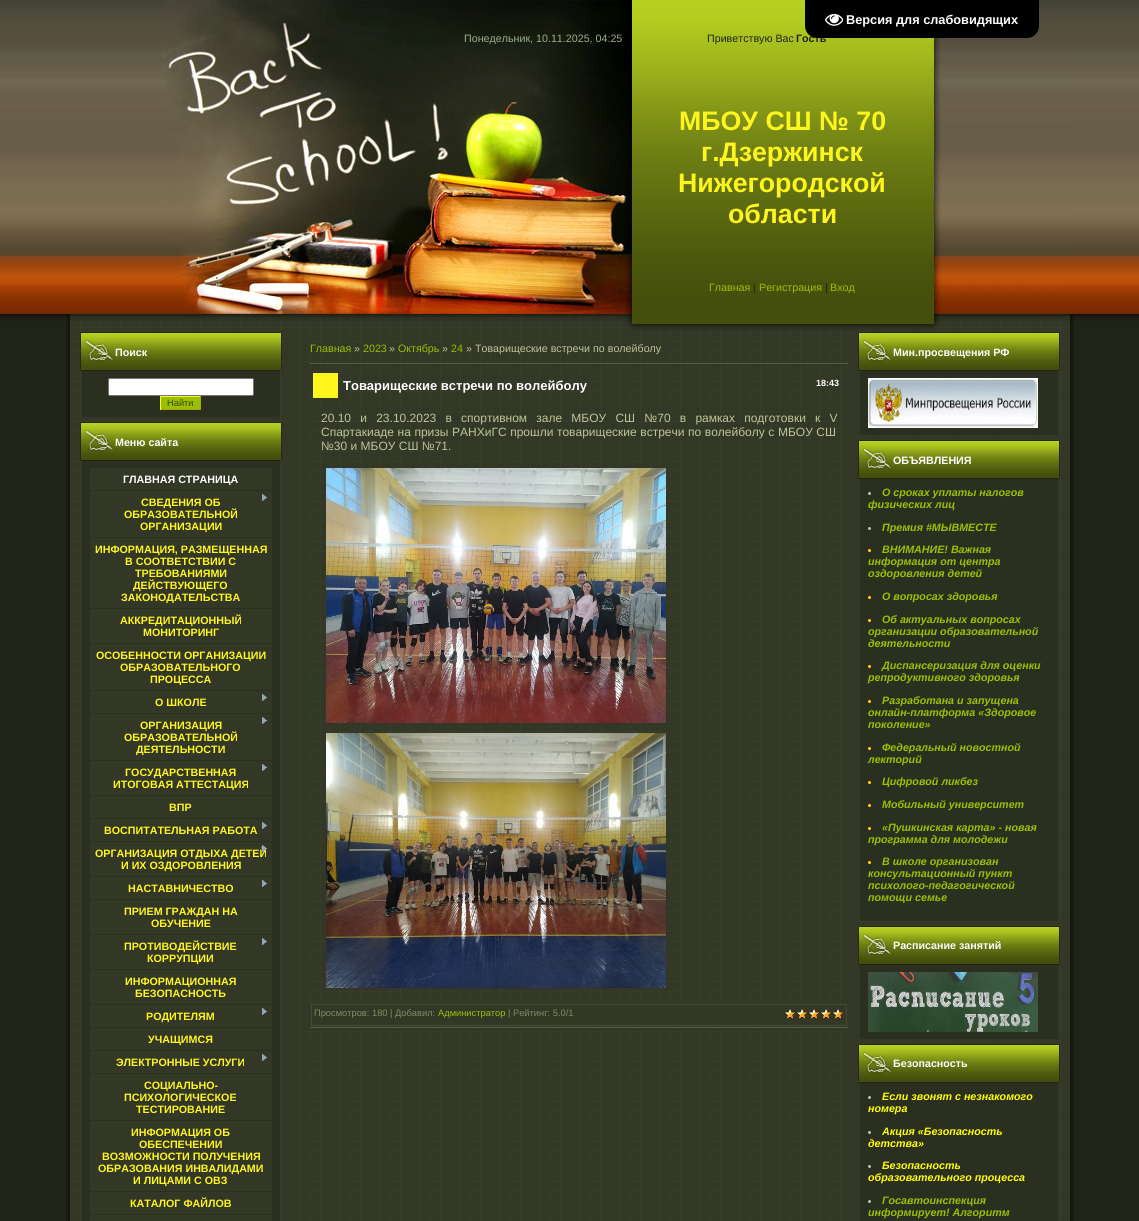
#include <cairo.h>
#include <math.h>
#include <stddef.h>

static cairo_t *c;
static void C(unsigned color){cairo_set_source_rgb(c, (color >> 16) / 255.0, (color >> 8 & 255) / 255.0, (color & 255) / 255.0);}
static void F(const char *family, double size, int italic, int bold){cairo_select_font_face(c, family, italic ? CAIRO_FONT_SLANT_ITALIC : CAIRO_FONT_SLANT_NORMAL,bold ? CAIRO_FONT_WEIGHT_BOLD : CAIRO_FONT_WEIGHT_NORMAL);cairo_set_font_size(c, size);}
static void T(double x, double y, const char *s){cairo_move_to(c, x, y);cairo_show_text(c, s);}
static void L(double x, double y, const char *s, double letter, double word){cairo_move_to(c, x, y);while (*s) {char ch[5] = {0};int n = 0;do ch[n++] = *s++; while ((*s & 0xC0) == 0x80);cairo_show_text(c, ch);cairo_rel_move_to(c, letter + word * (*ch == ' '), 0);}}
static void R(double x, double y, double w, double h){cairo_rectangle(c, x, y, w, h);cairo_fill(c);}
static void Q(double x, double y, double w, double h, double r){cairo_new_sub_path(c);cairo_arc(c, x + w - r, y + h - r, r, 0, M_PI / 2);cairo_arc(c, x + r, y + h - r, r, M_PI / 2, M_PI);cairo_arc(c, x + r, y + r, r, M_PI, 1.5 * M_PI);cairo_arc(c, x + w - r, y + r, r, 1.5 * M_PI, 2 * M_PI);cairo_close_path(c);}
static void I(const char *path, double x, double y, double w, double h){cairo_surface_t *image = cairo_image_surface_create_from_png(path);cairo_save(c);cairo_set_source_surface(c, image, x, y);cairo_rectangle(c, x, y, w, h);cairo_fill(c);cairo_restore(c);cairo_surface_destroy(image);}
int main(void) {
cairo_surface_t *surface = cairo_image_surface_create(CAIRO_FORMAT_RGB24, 1139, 1221);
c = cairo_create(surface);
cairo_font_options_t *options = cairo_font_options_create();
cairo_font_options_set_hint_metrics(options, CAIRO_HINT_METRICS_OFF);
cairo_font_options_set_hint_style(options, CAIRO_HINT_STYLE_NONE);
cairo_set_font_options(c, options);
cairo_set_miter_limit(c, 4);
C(0x202318);
cairo_paint(c);
I("1.png",66,332,1008,889);
I("3.png",0,0,1139,328);
I("5.png",632,0,301,76);
F("Liberation Sans",10.7,0,1);
C(0x202318);
T(796,42,"Гость");
I("6.png",933,0,137,314);
C(0x000000);
cairo_new_path(c);
cairo_move_to(c,805,0);
cairo_line_to(c,1039,0);
cairo_line_to(c,1039,26);
cairo_curve_to(c,1039,32.5,1033.5,38,1027,38);
cairo_line_to(c,817,38);
cairo_curve_to(c,810.5,38,805,32.5,805,26);
cairo_close_path(c);
cairo_fill(c);
I("2.png",825,13,18,13);
F("Liberation Sans",12.75,0,1);
C(0xffffff);
T(846,24,"Версия для слабовидящих");
I("4.png",162,0,470,76);
F("Liberation Sans",10.7,0,0);
C(0x9faf88);
T(464,42,"Понедельник, 10.11.2025, 04:25");
C(0x202318);
T(707,42,"Приветствую Вас");
I("7.png",162,76,470,184);
I("8.png",632,76,301,184);
F("Liberation Sans",26.75,0,1);
C(0xfff61e);
T(679,130,"МБОУ СШ № 70");
T(701,161,"г.Дзержинск");
T(678,192,"Нижегородской");
T(728,223,"области");
I("9.png",181,260,451,54);
I("10.png",632,260,301,54);
F("Liberation Sans",10.7,0,0);
C(0x9ac000);
T(709,291,"Главная");
C(0x202318);
T(753,291,"|");
C(0x9ac000);
T(759,291,"Регистрация");
C(0x202318);
T(825,291,"|");
C(0x9ac000);
T(830,291,"Вход");
I("11.png",66,314,1008,18);
C(0x2b2f20);
R(82,371,198,46);
I("12.png",80,332,202,39);
F("Liberation Sans",10.7,0,1);
C(0xffffff);
T(115,356,"Поиск");
Q(108.5,378.5,145,17,1.5);
cairo_fill_preserve(c);
C(0x767676);
cairo_set_line_width(c,1);
cairo_stroke(c);
C(0x9ac000);
R(161,397,39,12);
C(0xfff61e);
R(160,396,41,1);
C(0xaaa414);
R(200,396,1,14);
R(160,409,41,1);
C(0xfff61e);
R(160,396,1,14);
F("Liberation Sans",9.3,0,0);
C(0x3d460b);
T(167,406,"Найти");
C(0x2b2f20);
R(82,461,198,760);
I("12.png",80,422,202,39);
F("Liberation Sans",10.7,0,1);
C(0xffffff);
T(115,446,"Меню сайта");
C(0x323726);
R(90,468,182,22);
C(0xffffff);
T(123,483,"ГЛАВНАЯ СТРАНИЦА");
C(0x323726);
R(90,491,182,46);
C(0xfff61e);
T(141,506,"СВЕДЕНИЯ ОБ");
I("13.png",262,494,5,7);
T(124,518,"ОБРАЗОВАТЕЛЬНОЙ");
T(140,530,"ОРГАНИЗАЦИИ");
C(0x323726);
R(90,538,182,70);
C(0xfff61e);
T(95,553,"ИНФОРМАЦИЯ, РАЗМЕЩЕННАЯ");
T(125,565,"В СООТВЕТСТВИИ С");
T(135,577,"ТРЕБОВАНИЯМИ");
T(133,589,"ДЕЙСТВУЮЩЕГО");
T(121,601,"ЗАКОНОДАТЕЛЬСТВА");
C(0x323726);
R(90,609,182,34);
C(0xfff61e);
T(120,624,"АККРЕДИТАЦИОННЫЙ");
T(143,636,"МОНИТОРИНГ");
C(0x323726);
R(90,644,182,46);
C(0xfff61e);
T(96,659,"ОСОБЕННОСТИ ОРГАНИЗАЦИИ");
T(120,671,"ОБРАЗОВАТЕЛЬНОГО");
T(150,683,"ПРОЦЕССА");
C(0x323726);
R(90,691,182,22);
C(0xfff61e);
T(155,706,"О ШКОЛЕ");
I("13.png",262,694,5,7);
C(0x323726);
R(90,714,182,46);
C(0xfff61e);
T(140,729,"ОРГАНИЗАЦИЯ");
I("13.png",262,717,5,7);
T(124,741,"ОБРАЗОВАТЕЛЬНОЙ");
T(136,753,"ДЕЯТЕЛЬНОСТИ");
C(0x323726);
R(90,761,182,34);
C(0xfff61e);
T(125,776,"ГОСУДАРСТВЕННАЯ");
I("13.png",262,764,5,7);
T(113,788,"ИТОГОВАЯ АТТЕСТАЦИЯ");
C(0x323726);
R(90,796,182,22);
C(0xfff61e);
T(169,811,"ВПР");
C(0x323726);
R(90,819,182,22);
C(0xfff61e);
T(104,834,"ВОСПИТАТЕЛЬНАЯ РАБОТА");
I("13.png",262,822,5,7);
C(0x323726);
R(90,842,182,34);
C(0xfff61e);
T(95,857,"ОРГАНИЗАЦИЯ ОТДЫХА ДЕТЕЙ");
I("14.png",262,845,5,7);
T(121,869,"И ИХ ОЗДОРОВЛЕНИЯ");
C(0x323726);
R(90,877,182,22);
C(0xfff61e);
T(128,892,"НАСТАВНИЧЕСТВО");
I("13.png",262,880,5,7);
C(0x323726);
R(90,900,182,34);
C(0xfff61e);
T(124,915,"ПРИЕМ ГРАЖДАН НА");
T(151,927,"ОБУЧЕНИЕ");
C(0x323726);
R(90,935,182,34);
C(0xfff61e);
T(124,950,"ПРОТИВОДЕЙСТВИЕ");
I("13.png",262,938,5,7);
T(147,962,"КОРРУПЦИИ");
C(0x323726);
R(90,970,182,34);
C(0xfff61e);
T(125,985,"ИНФОРМАЦИОННАЯ");
T(135,997,"БЕЗОПАСНОСТЬ");
C(0x323726);
R(90,1005,182,22);
C(0xfff61e);
T(146,1020,"РОДИТЕЛЯМ");
I("13.png",262,1008,5,7);
C(0x323726);
R(90,1028,182,22);
C(0xfff61e);
T(148,1043,"УЧАЩИМСЯ");
C(0x323726);
R(90,1051,182,22);
C(0xfff61e);
T(116,1066,"ЭЛЕКТРОННЫЕ УСЛУГИ");
I("13.png",262,1054,5,7);
C(0x323726);
R(90,1074,182,46);
C(0xfff61e);
T(144,1089,"СОЦИАЛЬНО-");
T(124,1101,"ПСИХОЛОГИЧЕСКОЕ");
T(136,1113,"ТЕСТИРОВАНИЕ");
C(0x323726);
R(90,1121,182,70);
C(0xfff61e);
T(131,1136,"ИНФОРМАЦИЯ ОБ");
T(139,1148,"ОБЕСПЕЧЕНИИ");
T(102,1160,"ВОЗМОЖНОСТИ ПОЛУЧЕНИЯ");
T(98,1172,"ОБРАЗОВАНИЯ ИНВАЛИДАМИ");
T(133,1184,"И ЛИЦАМИ С ОВЗ");
C(0x323726);
R(90,1192,182,22);
C(0xfff61e);
T(130,1207,"КАТАЛОГ ФАЙЛОВ");
C(0x323726);
R(90,1215,182,6);
F("Liberation Sans",10.7,0,0);
C(0x9ac000);
T(310,352,"Главная");
C(0xbec59a);
T(354,352,"»");
C(0x9ac000);
T(363,352,"2023");
C(0xbec59a);
T(389,352,"»");
C(0x9ac000);
T(398,352,"Октябрь");
C(0xbec59a);
T(442,352,"»");
C(0x9ac000);
T(451,352,"24");
C(0xbec59a);
T(466,352,"» Товарищеские встречи по волейболу");
C(0x586044);
R(310,363,538,1);
R(310,1027,538,1);
C(0xfff61e);
R(313,373,25,25);
F("Liberation Sans",13,0,1);
C(0xffffff);
T(343,390,"Товарищеские встречи по волейболу");
F("Liberation Sans",9,0,1);
T(816,386,"18:43");
F("Liberation Sans",12,0,0);
C(0xbec59a);
L(321,422,"20.10 и 23.10.2023 в спортивном зале МБОУ СШ №70 в рамках подготовки к V",0,5.9);
L(321,436,"Спартакиаде на призы РАНХиГС прошли товарищеские встречи по волейболу с МБОУ СШ",0,.25);
T(321,450,"№30 и МБОУ СШ №71.");
I("15.png",326,468,340,255);
I("16.png",326,733,340,255);
C(0x323726);
cairo_rectangle(c,311.5,1004.5,535,21);
cairo_fill_preserve(c);
C(0x454b35);
cairo_stroke(c);
F("Liberation Sans",9.3,0,0);
C(0x818e62);
T(314,1016,"Просмотров: 180 | Добавил:");
C(0x9ac000);
T(438,1016,"Администратор");
C(0x818e62);
T(508,1016,"| Рейтинг: 5.0/1");
I("17.png",785,1009,58,10);
I("18.png",784,1008,60,12);
C(0x2b2f20);
R(860,371,198,64);
I("12.png",858,332,202,39);
F("Liberation Sans",10.7,0,1);
C(0xffffff);
T(893,356,"Мин.просвещения РФ");
I("19.png",868,378,170,50);
C(0x2b2f20);
R(860,479,198,442);
I("12.png",858,440,202,39);
C(0xffffff);
T(893,464,"ОБЪЯВЛЕНИЯ");
C(0xbec59a);
cairo_new_path(c);
cairo_arc(c,869.5,493.5,1.5,0,2 * M_PI);
cairo_fill(c);
F("Liberation Sans",10.7,1,1);
C(0x9ac000);
T(882,496,"О сроках уплаты налогов");
T(868,508,"физических лиц");
C(0xbec59a);
cairo_new_path(c);
cairo_arc(c,869.5,528.5,1.5,0,2 * M_PI);
cairo_fill(c);
C(0x9ac000);
T(882,531,"Премия #МЫВМЕСТЕ");
C(0xffd700);
cairo_new_path(c);
cairo_arc(c,869.5,550.5,1.5,0,2 * M_PI);
cairo_fill(c);
C(0x9ac000);
T(882,553,"ВНИМАНИЕ! Важная");
T(868,565,"информация от центра");
T(868,577,"оздоровления детей");
C(0xffd700);
cairo_new_path(c);
cairo_arc(c,869.5,597.5,1.5,0,2 * M_PI);
cairo_fill(c);
C(0x9ac000);
T(882,600,"О вопросах здоровья");
C(0xffd700);
cairo_new_path(c);
cairo_arc(c,869.5,620.5,1.5,0,2 * M_PI);
cairo_fill(c);
C(0x9ac000);
T(882,623,"Об актуальных вопросах");
T(868,635,"организации образовательной");
T(868,647,"деятельности");
C(0xffd700);
cairo_new_path(c);
cairo_arc(c,869.5,666.5,1.5,0,2 * M_PI);
cairo_fill(c);
C(0x9ac000);
T(882,669,"Диспансеризация для оценки");
T(868,681,"репродуктивного здоровья");
C(0xffd700);
cairo_new_path(c);
cairo_arc(c,869.5,701.5,1.5,0,2 * M_PI);
cairo_fill(c);
C(0x9ac000);
T(882,704,"Разработана и запущена");
T(868,716,"онлайн-платформа «Здоровое");
T(868,728,"поколение»");
C(0xffd700);
cairo_new_path(c);
cairo_arc(c,869.5,748.5,1.5,0,2 * M_PI);
cairo_fill(c);
C(0x9ac000);
T(882,751,"Федеральный новостной");
T(868,763,"лекторий");
C(0xffd700);
cairo_new_path(c);
cairo_arc(c,869.5,782.5,1.5,0,2 * M_PI);
cairo_fill(c);
C(0x9ac000);
T(882,785,"Цифровой ликбез");
C(0xffd700);
cairo_new_path(c);
cairo_arc(c,869.5,805.5,1.5,0,2 * M_PI);
cairo_fill(c);
C(0x9ac000);
T(882,808,"Мобильный университет");
C(0xffd700);
cairo_new_path(c);
cairo_arc(c,869.5,828.5,1.5,0,2 * M_PI);
cairo_fill(c);
C(0x9ac000);
T(882,831,"«Пушкинская карта» - новая");
T(868,843,"программа для молодежи");
C(0xffd700);
cairo_new_path(c);
cairo_arc(c,869.5,862.5,1.5,0,2 * M_PI);
cairo_fill(c);
C(0x9ac000);
T(882,865,"В школе организован");
T(868,877,"консультационный пункт");
T(868,889,"психолого-педагогической");
T(868,901,"помощи семье");
C(0x2b2f20);
R(860,965,198,74);
I("12.png",858,926,202,39);
F("Liberation Sans",10.7,0,1);
C(0xffffff);
T(893,949,"Расписание занятий");
I("20.png",868,972,170,60);
C(0x2b2f20);
R(860,1083,198,138);
I("12.png",858,1044,202,39);
C(0xffffff);
T(893,1067,"Безопасность");
C(0xbec59a);
cairo_new_path(c);
cairo_arc(c,869.5,1097.5,1.5,0,2 * M_PI);
cairo_fill(c);
F("Liberation Sans",10.7,1,1);
C(0xffff00);
T(882,1100,"Если звонят с незнакомого");
T(868,1112,"номера");
C(0xbec59a);
cairo_new_path(c);
cairo_arc(c,869.5,1132.5,1.5,0,2 * M_PI);
cairo_fill(c);
C(0xffff00);
T(882,1135,"Акция «Безопасность");
T(868,1147,"детства»");
C(0xbec59a);
cairo_new_path(c);
cairo_arc(c,869.5,1166.5,1.5,0,2 * M_PI);
cairo_fill(c);
C(0xffff00);
T(882,1169,"Безопасность");
T(868,1181,"образовательного процесса");
C(0xbec59a);
cairo_new_path(c);
cairo_arc(c,869.5,1201.5,1.5,0,2 * M_PI);
cairo_fill(c);
C(0x9ac000);
T(882,1204,"Госавтоинспекция");
T(868,1216,"информирует! Алгоритм");
cairo_surface_write_to_png(surface, "o.png");
cairo_font_options_destroy(options);
cairo_destroy(c);
cairo_surface_destroy(surface);
return 0;
}
